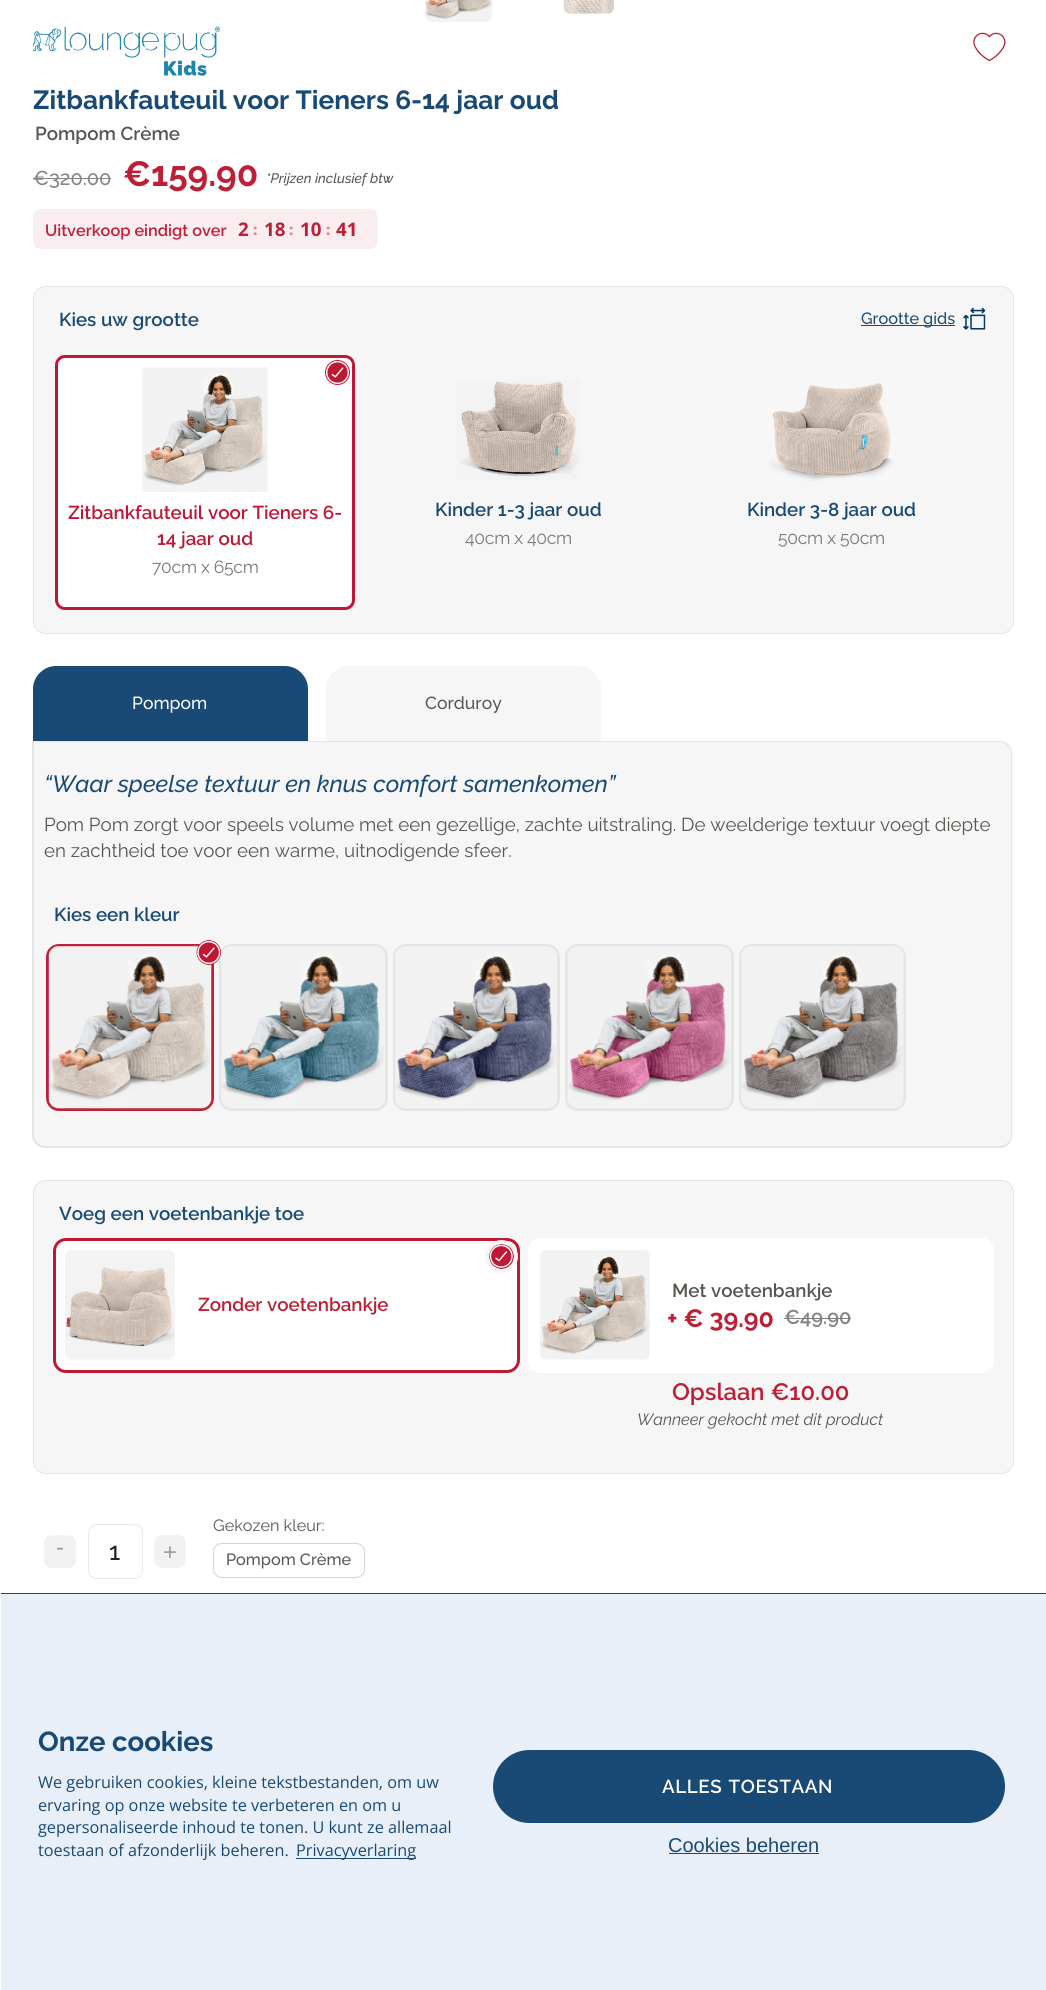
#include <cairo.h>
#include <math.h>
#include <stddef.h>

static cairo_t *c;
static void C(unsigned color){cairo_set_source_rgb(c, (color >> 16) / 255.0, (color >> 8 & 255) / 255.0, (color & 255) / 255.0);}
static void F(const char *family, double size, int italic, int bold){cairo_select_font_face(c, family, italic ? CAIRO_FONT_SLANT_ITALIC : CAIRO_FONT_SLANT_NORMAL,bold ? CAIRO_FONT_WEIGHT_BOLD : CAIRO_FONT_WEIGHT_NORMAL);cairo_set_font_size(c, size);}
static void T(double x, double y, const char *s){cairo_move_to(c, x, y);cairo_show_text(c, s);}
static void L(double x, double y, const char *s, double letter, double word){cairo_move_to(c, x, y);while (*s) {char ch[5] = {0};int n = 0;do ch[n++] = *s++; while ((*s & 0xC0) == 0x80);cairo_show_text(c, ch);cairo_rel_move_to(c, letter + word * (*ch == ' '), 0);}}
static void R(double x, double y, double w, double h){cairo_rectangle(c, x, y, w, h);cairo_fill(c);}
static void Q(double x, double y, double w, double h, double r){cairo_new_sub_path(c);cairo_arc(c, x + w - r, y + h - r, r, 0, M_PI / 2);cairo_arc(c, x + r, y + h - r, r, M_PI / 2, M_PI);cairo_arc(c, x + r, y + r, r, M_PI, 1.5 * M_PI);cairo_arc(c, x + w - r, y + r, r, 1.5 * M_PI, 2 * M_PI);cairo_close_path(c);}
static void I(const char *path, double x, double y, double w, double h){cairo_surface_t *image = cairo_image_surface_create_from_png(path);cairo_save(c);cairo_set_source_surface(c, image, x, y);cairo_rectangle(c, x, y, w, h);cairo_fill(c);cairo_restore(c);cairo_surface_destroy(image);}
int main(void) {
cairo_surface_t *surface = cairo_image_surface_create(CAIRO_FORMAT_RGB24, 1046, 1990);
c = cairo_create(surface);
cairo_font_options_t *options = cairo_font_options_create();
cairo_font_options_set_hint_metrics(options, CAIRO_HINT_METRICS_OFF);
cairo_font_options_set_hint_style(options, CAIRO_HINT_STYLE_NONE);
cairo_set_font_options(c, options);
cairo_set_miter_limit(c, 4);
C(0xffffff);
cairo_paint(c);
I("1.png",425,0,68,22);
I("2.png",563,0,51,14);
cairo_set_source_rgba(c,1,1,1,0.04);
cairo_new_path(c);
cairo_move_to(c,613,-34);
cairo_curve_to(c,614,-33,614,-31,614,-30);
cairo_line_to(c,614,9);
cairo_curve_to(c,614,12,611,15,608,15);
cairo_line_to(c,572,15);
cairo_close_path(c);
cairo_fill(c);
I("3.png",973,32,33,30);
I("4.png",33,26,187,50);
F("Raleway",26.25,0,1);
C(0x194a75);
T(33,109,"Zitbankfauteuil voor Tieners 6-14 jaar oud");
F("Raleway SemiBold",18.75,0,0);
C(0x595551);
T(35,140,"Pompom Crème");
F("Raleway Medium",20,0,0);
C(0x848484);
T(33,185,"€320.00");
R(33,178,78,1);
F("Raleway",35,0,1);
C(0xbd2036);
T(123,186,"€159.90");
F("Raleway Medium",13.75,1,0);
C(0x595551);
T(266,183,"*Prijzen inclusief btw");
C(0xfaedef);
Q(33,209,345,40,8);
cairo_fill(c);
F("Raleway SemiBold",16.25,0,0);
C(0xbd2036);
T(45,236,"Uitverkoop eindigt over");
F("Open Sans",18.75,0,1);
T(238,236,"2");
F("Open Sans ExtraBold",15,0,0);
C(0xdc8793);
T(253,235,":");
F("Open Sans",18.75,0,1);
C(0xbd2036);
T(264,236,"18");
F("Open Sans ExtraBold",15,0,0);
C(0xdc8793);
T(289,235,":");
F("Open Sans",18.75,0,1);
C(0xbd2036);
T(300,236,"10");
F("Open Sans ExtraBold",15,0,0);
C(0xdc8793);
T(326,235,":");
F("Open Sans",18.75,0,1);
C(0xbd2036);
T(336,236,"41");
C(0xf6f6f6);
Q(33.5,286.5,980,347,12.5);
cairo_fill_preserve(c);
C(0xe4e4e4);
cairo_set_line_width(c,1);
cairo_stroke(c);
F("Raleway SemiBold",18.75,0,0);
C(0x194a75);
T(59,326,"Kies uw grootte");
R(861,325,94,1);
F("Raleway Medium",16.25,0,0);
T(861,324,"Grootte gids");
I("5.png",963,307,23,23);
C(0xffffff);
Q(56.5,356.5,297,252,8.5);
cairo_fill_preserve(c);
C(0xbe1834);
cairo_set_line_width(c,3);
cairo_stroke(c);
I("6.png",325,360,25,25);
I("7.png",142,367,126,125);
F("Raleway SemiBold",18.75,0,0);
T(68,519,"Zitbankfauteuil voor Tieners 6-");
T(157,545,"14 jaar oud");
F("Raleway",17.5,0,0);
C(0x797979);
L(152,573,"70cm x 65cm",-.25,0);
I("8.png",456,380,124,100);
F("Raleway SemiBold",18.75,0,0);
C(0x194a75);
T(435,516,"Kinder 1-3 jaar oud");
F("Raleway",17.5,0,0);
C(0x797979);
L(465,544,"40cm x 40cm",-.25,0);
I("9.png",769,382,125,99);
F("Raleway SemiBold",18.75,0,0);
C(0x194a75);
T(747,516,"Kinder 3-8 jaar oud");
F("Raleway",17.5,0,0);
C(0x797979);
L(778,544,"50cm x 50cm",-.25,0);
C(0x194a75);
cairo_new_path(c);
cairo_move_to(c,56,666);
cairo_line_to(c,285,666);
cairo_curve_to(c,297.5,666,308,676.5,308,689);
cairo_line_to(c,308,741);
cairo_line_to(c,33,741);
cairo_line_to(c,33,689);
cairo_curve_to(c,33,676.5,43.5,666,56,666);
cairo_close_path(c);
cairo_fill(c);
F("Raleway Medium",17.5,0,0);
C(0xffffff);
T(132,709,"Pompom");
C(0xf6f6f6);
cairo_new_path(c);
cairo_move_to(c,349,666);
cairo_line_to(c,578,666);
cairo_curve_to(c,590.5,666,601,676.5,601,689);
cairo_line_to(c,601,741);
cairo_line_to(c,326,741);
cairo_line_to(c,326,689);
cairo_curve_to(c,326,676.5,336.5,666,349,666);
cairo_close_path(c);
cairo_fill(c);
C(0x595551);
T(425,709,"Corduroy");
C(0xf6f6f6);
cairo_new_path(c);
cairo_move_to(c,33,741);
cairo_line_to(c,1000,741);
cairo_curve_to(c,1007,741,1013,747,1013,754);
cairo_line_to(c,1013,875);
cairo_line_to(c,33,875);
cairo_close_path(c);
cairo_fill(c);
C(0xe4e4e4);
cairo_set_fill_rule(c,CAIRO_FILL_RULE_EVEN_ODD);
cairo_new_path(c);
cairo_move_to(c,32,741);
cairo_line_to(c,1000,741);
cairo_curve_to(c,1007,741,1012,747,1012,754);
cairo_line_to(c,1012,875);
cairo_line_to(c,32,875);
cairo_close_path(c);
cairo_move_to(c,34,742);
cairo_line_to(c,1000,742);
cairo_curve_to(c,1006,742,1011,748,1011,754);
cairo_line_to(c,1011,875);
cairo_line_to(c,34,875);
cairo_close_path(c);
cairo_fill(c);
F("Raleway Medium",23.4,1,0);
C(0x194a75);
T(44,792,"“Waar speelse textuur en knus comfort samenkomen”");
F("Raleway",18.75,0,0);
C(0x595551);
T(44,831,"Pom Pom zorgt voor speels volume met een gezellige, zachte uitstraling. De weelderige textuur voegt diepte");
T(44,857,"en zachtheid toe voor een warme, uitnodigende sfeer.");
C(0xf6f6f6);
cairo_new_path(c);
cairo_move_to(c,33,875);
cairo_line_to(c,1013,875);
cairo_line_to(c,1013,1135);
cairo_curve_to(c,1013,1142,1007,1148,1000,1148);
cairo_line_to(c,46,1148);
cairo_curve_to(c,39,1148,33,1142,33,1135);
cairo_close_path(c);
cairo_fill(c);
C(0xe4e4e4);
cairo_new_path(c);
cairo_move_to(c,32,875);
cairo_line_to(c,1012,875);
cairo_line_to(c,1012,1135);
cairo_curve_to(c,1012,1142,1007,1148,1000,1148);
cairo_line_to(c,45,1148);
cairo_curve_to(c,38,1148,32,1142,32,1135);
cairo_close_path(c);
cairo_move_to(c,34,875);
cairo_line_to(c,1011,875);
cairo_line_to(c,1011,1135);
cairo_curve_to(c,1011,1141,1006,1146,1000,1146);
cairo_line_to(c,45,1146);
cairo_curve_to(c,39,1146,34,1141,34,1135);
cairo_close_path(c);
cairo_fill(c);
F("Raleway SemiBold",18.75,0,0);
C(0x194a75);
T(54,921,"Kies een kleur");
Q(47.5,945.5,165,164,11.5);
C(0xbd2036);
cairo_stroke(c);
I("11.png",48,945,164,164);
Q(220.5,945.5,166,164,11.5);
C(0xe5e5e5);
cairo_stroke(c);
I("10.png",196,940,25,25);
I("12.png",221,946,164,163);
Q(394.5,945.5,164,164,11.5);
cairo_stroke(c);
I("13.png",395,946,162,163);
Q(566.5,945.5,166,164,11.5);
cairo_stroke(c);
I("14.png",567,946,164,163);
Q(740.5,945.5,164,164,11.5);
cairo_stroke(c);
I("15.png",741,946,163,163);
C(0xf6f6f6);
Q(33.5,1180.5,980,293,12.5);
cairo_fill_preserve(c);
C(0xe4e4e4);
cairo_set_line_width(c,1);
cairo_stroke(c);
C(0x194a75);
T(59,1220,"Voeg een voetenbankje toe");
C(0xffffff);
Q(54.5,1239.5,464,132,11.5);
cairo_fill_preserve(c);
C(0xbe1834);
cairo_set_line_width(c,3);
cairo_stroke(c);
I("16.png",65,1250,110,110);
C(0xbd2036);
T(198,1311,"Zonder voetenbankje");
I("17.png",489,1244,25,25);
cairo_arc(c,501.5,1256.5,14.5,0,2 * M_PI);
C(0xf6f6f6);
cairo_set_line_width(c,4);
cairo_stroke(c);
C(0xffffff);
Q(528,1238,466,135,13);
cairo_fill(c);
I("18.png",540,1250,110,110);
C(0x595551);
T(672,1297,"Met voetenbankje");
F("Raleway",25,0,1);
C(0xbd2036);
T(667,1327,"+ € 39.90");
F("Raleway SemiBold",20,0,0);
C(0x848484);
T(784,1324,"€49.90");
C(0x808080);
R(784,1318,67,1);
F("Raleway SemiBold",23.75,0,0);
C(0xbd2036);
T(672,1400,"Opslaan €10.00");
F("Raleway",16.25,1,0);
C(0x595551);
T(637,1425,"Wanneer gekocht met dit product");
C(0xf2f2f2);
Q(44,1535,32,33,8);
cairo_fill(c);
F("Liberation Sans",23.75,0,0);
C(0x9d9d9d);
T(56,1555,"-");
Q(88.5,1524.5,54,54,8.5);
C(0xe8e8e8);
cairo_set_line_width(c,1);
cairo_stroke(c);
F("Raleway Medium",25,0,0);
C(0x222222);
T(109,1560,"1");
C(0xf2f2f2);
Q(154,1535,32,33,8);
cairo_fill(c);
F("Liberation Sans",23.75,0,0);
C(0x9d9d9d);
T(163,1560,"+");
F("Raleway",16.25,0,0);
C(0x595551);
T(213,1531,"Gekozen kleur:");
Q(213.5,1543.5,151,34,8.5);
C(0xd3d3d3);
cairo_stroke(c);
F("Raleway Medium",16.25,0,0);
C(0x595551);
T(226,1565,"Pompom Crème");
C(0xe8eff9);
R(1,1594,1045,396);
C(0x194a75);
R(1,1593,1045,1);
F("Raleway",27.5,0,1);
T(38,1751,"Onze cookies");
F("Open Sans",16.25,0,0);
T(38,1788,"We gebruiken cookies, kleine tekstbestanden, om uw");
T(38,1811,"ervaring op onze website te verbeteren en om u");
T(38,1833,"gepersonaliseerde inhoud te tonen. U kunt ze allemaal");
T(38,1856,"toestaan of afzonderlijk beheren.");
C(0x1b4975);
R(296,1858,120,1);
C(0x194a75);
T(296,1856,"Privacyverlaring");
Q(493,1750,512,73,36.5);
cairo_fill(c);
F("Raleway SemiBold",18.75,0,0);
C(0xffffff);
L(662,1793,"ALLES TOESTAAN",.6,1);
F("Liberation Sans",20,0,0);
C(0x194a75);
T(668,1852,"Cookies beheren");
C(0x1b4975);
R(669,1853,150,1);
cairo_surface_write_to_png(surface, "o.png");
cairo_font_options_destroy(options);
cairo_destroy(c);
cairo_surface_destroy(surface);
return 0;
}
